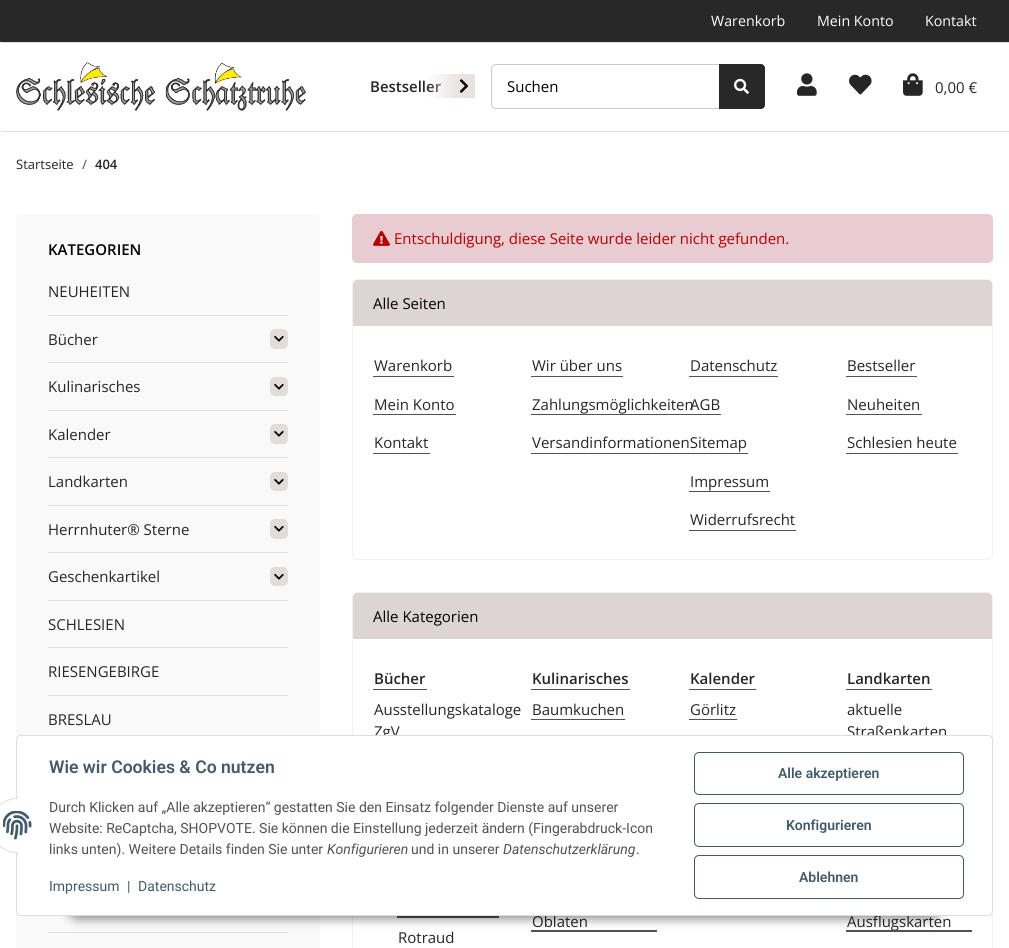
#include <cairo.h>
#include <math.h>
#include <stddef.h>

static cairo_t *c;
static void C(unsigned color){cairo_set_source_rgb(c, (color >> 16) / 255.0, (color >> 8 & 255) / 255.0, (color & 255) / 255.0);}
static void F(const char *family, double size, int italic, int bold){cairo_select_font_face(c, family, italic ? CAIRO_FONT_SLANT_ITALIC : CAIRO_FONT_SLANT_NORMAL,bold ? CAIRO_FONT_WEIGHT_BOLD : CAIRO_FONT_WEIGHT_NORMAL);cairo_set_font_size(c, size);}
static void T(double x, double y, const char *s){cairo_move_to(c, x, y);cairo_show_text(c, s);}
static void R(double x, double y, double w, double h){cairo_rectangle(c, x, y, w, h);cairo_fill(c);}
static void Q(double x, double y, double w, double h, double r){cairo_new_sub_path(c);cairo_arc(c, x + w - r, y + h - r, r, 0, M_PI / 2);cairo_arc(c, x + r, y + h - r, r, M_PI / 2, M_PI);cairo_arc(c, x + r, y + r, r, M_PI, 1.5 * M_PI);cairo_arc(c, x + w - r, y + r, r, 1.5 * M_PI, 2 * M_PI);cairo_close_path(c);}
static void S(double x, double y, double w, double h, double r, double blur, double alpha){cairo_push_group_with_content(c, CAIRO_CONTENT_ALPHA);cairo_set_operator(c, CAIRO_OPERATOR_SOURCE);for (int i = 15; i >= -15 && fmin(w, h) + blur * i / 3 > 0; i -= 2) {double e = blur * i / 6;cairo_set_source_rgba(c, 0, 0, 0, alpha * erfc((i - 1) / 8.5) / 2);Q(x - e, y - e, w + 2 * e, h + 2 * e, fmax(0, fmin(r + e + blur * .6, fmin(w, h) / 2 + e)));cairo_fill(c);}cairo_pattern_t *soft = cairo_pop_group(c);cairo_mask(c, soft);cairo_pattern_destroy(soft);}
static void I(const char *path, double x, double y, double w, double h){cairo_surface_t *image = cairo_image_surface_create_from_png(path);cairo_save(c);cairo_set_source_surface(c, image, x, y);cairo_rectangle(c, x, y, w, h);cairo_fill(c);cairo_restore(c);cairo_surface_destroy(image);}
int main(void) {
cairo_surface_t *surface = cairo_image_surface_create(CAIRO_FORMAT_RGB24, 1009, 948);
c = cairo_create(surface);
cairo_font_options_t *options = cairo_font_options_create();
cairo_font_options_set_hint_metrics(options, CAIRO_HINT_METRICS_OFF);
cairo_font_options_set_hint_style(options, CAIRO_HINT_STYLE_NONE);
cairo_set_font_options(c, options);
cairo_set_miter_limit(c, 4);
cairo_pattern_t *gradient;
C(0xffffff);
cairo_paint(c);
C(0x282828);
R(0,0,1009,42);
C(0xdedede);
cairo_new_path(c);
cairo_move_to(c,1,42);
cairo_line_to(c,1,43);
cairo_line_to(c,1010,43);
cairo_line_to(c,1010,1);
cairo_line_to(c,1009,1);
cairo_line_to(c,1009,42);
cairo_close_path(c);
cairo_fill(c);
F("Open Sans",14.25,0,0);
C(0xffffff);
T(711,26,"Warenkorb");
T(817,26,"Mein Konto");
T(925,26,"Kontakt");
C(0xdedede);
cairo_new_path(c);
cairo_move_to(c,1,131);
cairo_line_to(c,1,132);
cairo_line_to(c,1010,132);
cairo_line_to(c,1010,43);
cairo_line_to(c,1009,43);
cairo_line_to(c,1009,131);
cairo_close_path(c);
cairo_fill(c);
I("1.png",16,62,290,49);
F("Open Sans SemiBold",15,0,0);
C(0x262626);
T(370,92,"Bestseller");
gradient = cairo_pattern_create_linear(427,86,475,86);
cairo_pattern_add_color_stop_rgba(gradient,0,0.91,0.886,0.886,.01);
cairo_pattern_add_color_stop_rgba(gradient,.7,0.91,0.886,0.886,1);
cairo_set_source(c,gradient);
cairo_pattern_destroy(gradient);
R(427,74,48,24);
I("2.png",459,79,10,14);
cairo_new_path(c);
cairo_move_to(c,496,64.5);
cairo_line_to(c,719.5,64.5);
cairo_line_to(c,719.5,108.5);
cairo_line_to(c,496,108.5);
cairo_curve_to(c,493.5,108.5,491.5,106.5,491.5,104);
cairo_line_to(c,491.5,69);
cairo_curve_to(c,491.5,66.5,493.5,64.5,496,64.5);
cairo_close_path(c);
C(0xcacaca);
cairo_set_line_width(c,1);
cairo_stroke(c);
F("Open Sans",15,0,0);
C(0x000000);
T(507,92,"Suchen");
C(0x282828);
cairo_new_path(c);
cairo_move_to(c,719,64);
cairo_line_to(c,760,64);
cairo_curve_to(c,763,64,765,66,765,69);
cairo_line_to(c,765,104);
cairo_curve_to(c,765,107,763,109,760,109);
cairo_line_to(c,719,109);
cairo_close_path(c);
cairo_fill(c);
cairo_set_fill_rule(c,CAIRO_FILL_RULE_EVEN_ODD);
cairo_new_path(c);
cairo_move_to(c,719,64);
cairo_line_to(c,760,64);
cairo_curve_to(c,763,64,765,66,765,69);
cairo_line_to(c,765,104);
cairo_curve_to(c,765,107,763,109,760,109);
cairo_line_to(c,719,109);
cairo_close_path(c);
cairo_move_to(c,719,65);
cairo_line_to(c,760,65);
cairo_curve_to(c,762,65,764,67,764,69);
cairo_line_to(c,764,104);
cairo_curve_to(c,764,106,762,108,760,108);
cairo_line_to(c,719,108);
cairo_close_path(c);
cairo_fill(c);
I("3.png",734,78,15,16);
I("4.png",797,73,20,23);
I("5.png",849,74,23,21);
I("6.png",903,73,20,23);
C(0x262626);
T(935,93,"0,00 €");
F("Open Sans",13,0,0);
T(16,169,"Startseite");
F("Open Sans SemiBold",13,0,0);
C(0x707070);
T(82,169,"/");
C(0x262626);
T(95,169,"404");
C(0xf9f9f9);
Q(16,214,304,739,5);
cairo_fill(c);
F("Open Sans SemiBold",15,0,0);
C(0x000000);
T(48,255,"KATEGORIEN");
C(0xe3dcdc);
R(48,315,240,1);
F("Open Sans",15,0,0);
C(0x262626);
T(48,297,"NEUHEITEN");
C(0xe3dcdc);
R(48,362,240,1);
C(0x262626);
T(48,345,"Bücher");
C(0xe3dcdc);
Q(270,329,18,20,5);
cairo_fill(c);
I("7.png",274,335,10,7);
R(48,410,240,1);
C(0x262626);
T(48,392,"Kulinarisches");
C(0xe3dcdc);
Q(270,377,18,19,5);
cairo_fill(c);
I("7.png",274,383,10,7);
R(48,457,240,1);
C(0x262626);
T(48,440,"Kalender");
C(0xe3dcdc);
Q(270,424,18,20,5);
cairo_fill(c);
I("7.png",274,430,10,7);
R(48,505,240,1);
C(0x262626);
T(48,487,"Landkarten");
C(0xe3dcdc);
Q(270,472,18,19,5);
cairo_fill(c);
I("7.png",274,478,10,7);
R(48,552,240,1);
C(0x262626);
T(48,535,"Herrnhuter® Sterne");
C(0xe3dcdc);
Q(270,519,18,20,5);
cairo_fill(c);
I("7.png",274,525,10,7);
R(48,600,240,1);
C(0x262626);
T(48,582,"Geschenkartikel");
C(0xe3dcdc);
Q(270,567,18,19,5);
cairo_fill(c);
I("7.png",274,573,10,7);
R(48,647,240,1);
C(0x262626);
T(48,630,"SCHLESIEN");
C(0xe3dcdc);
R(48,695,240,1);
C(0x262626);
T(48,677,"RIESENGEBIRGE");
T(48,725,"BRESLAU");
C(0xe3dcdc);
R(48,932,240,1);
C(0xe8ccd2);
Q(352.5,214.5,640,48,4.5);
cairo_fill_preserve(c);
cairo_stroke(c);
I("8.png",373,230,17,16);
C(0xb90000);
T(394,244,"Entschuldigung, diese Seite wurde leider nicht gefunden.");
Q(352.5,279.5,640,280,4.5);
C(0xf3f0f0);
cairo_stroke(c);
C(0xddd4d4);
cairo_new_path(c);
cairo_move_to(c,357,280);
cairo_line_to(c,988,280);
cairo_curve_to(c,990,280,992,282,992,284);
cairo_line_to(c,992,326);
cairo_line_to(c,353,326);
cairo_line_to(c,353,284);
cairo_curve_to(c,353,282,355,280,357,280);
cairo_close_path(c);
cairo_fill(c);
C(0x000000);
T(373,309,"Alle Seiten");
C(0x262626);
T(374,371,"Warenkorb");
C(0x525252);
R(373,376,81,1);
C(0x262626);
T(374,410,"Mein Konto");
C(0x525252);
R(373,414,83,1);
C(0x262626);
T(374,448,"Kontakt");
C(0x525252);
R(373,453,57,1);
C(0x262626);
T(532,371,"Wir über uns");
C(0x525252);
R(531,376,92,1);
C(0x262626);
T(532,410,"Zahlungsmöglichkeiten");
C(0x525252);
R(531,414,190,1);
C(0x262626);
T(532,448,"VersandinformationenSitemap");
C(0x525252);
R(531,453,217,1);
C(0x262626);
T(690,371,"Datenschutz");
C(0x525252);
R(689,376,89,1);
C(0x262626);
T(690,410,"AGB");
T(690,487,"Impressum");
C(0x525252);
R(689,491,81,1);
C(0x262626);
T(690,525,"Widerrufsrecht");
C(0x525252);
R(689,530,107,1);
C(0x262626);
T(847,371,"Bestseller");
C(0x525252);
R(846,376,71,1);
C(0x262626);
T(847,410,"Neuheiten");
C(0x525252);
R(846,414,76,1);
C(0x262626);
T(847,448,"Schlesien heute");
C(0x525252);
R(846,453,112,1);
Q(352.5,592.5,640,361,4.5);
C(0xf3f0f0);
cairo_stroke(c);
C(0xddd4d4);
cairo_new_path(c);
cairo_move_to(c,357,593);
cairo_line_to(c,988,593);
cairo_curve_to(c,990,593,992,595,992,597);
cairo_line_to(c,992,639);
cairo_line_to(c,353,639);
cairo_line_to(c,353,597);
cairo_curve_to(c,353,595,355,593,357,593);
cairo_close_path(c);
cairo_fill(c);
C(0x000000);
T(373,622,"Alle Kategorien");
F("Open Sans SemiBold",15,0,0);
C(0x262626);
T(374,684,"Bücher");
C(0x525252);
R(373,689,54,1);
F("Open Sans",15,0,0);
C(0x262626);
T(374,715,"Ausstellungskataloge");
T(374,737,"ZgV");
C(0x525252);
R(397,916,102,2);
C(0x262626);
T(398,943,"Rotraud");
F("Open Sans SemiBold",15,0,0);
T(532,684,"Kulinarisches");
C(0x525252);
R(531,689,99,1);
F("Open Sans",15,0,0);
C(0x262626);
T(532,715,"Baumkuchen");
C(0x525252);
R(531,719,94,1);
C(0x262626);
T(532,927,"Oblaten");
C(0x525252);
R(531,930,126,2);
F("Open Sans SemiBold",15,0,0);
C(0x262626);
T(690,684,"Kalender");
C(0x525252);
R(689,689,67,1);
F("Open Sans",15,0,0);
C(0x262626);
T(690,715,"Görlitz");
C(0x525252);
R(689,719,48,1);
F("Open Sans SemiBold",15,0,0);
C(0x262626);
T(847,684,"Landkarten");
C(0x525252);
R(846,689,86,1);
F("Open Sans",15,0,0);
C(0x262626);
T(847,715,"aktuelle");
T(847,737,"Straßenkarten");
T(847,927,"Ausflugskarten");
C(0x525252);
R(846,930,126,2);
C(0x000000);
S(66,887,877,32,16,5,.45);
C(0xffffff);
Q(16.5,735.5,976,180,4.5);
cairo_fill_preserve(c);
C(0xdddddd);
cairo_stroke(c);
C(0xffffff);
cairo_arc(c,17.5,825.5,27,0,2 * M_PI);
cairo_fill_preserve(c);
C(0xdddddd);
cairo_stroke(c);
C(0xffffff);
R(18,798,27,55);
I("9.png",3,811,29,29);
F("Roboto SemiBold",17.6,0,0);
C(0x435a6b);
T(49,773,"Wie wir Cookies & Co nutzen");
F("Roboto",14,0,0);
C(0x525252);
T(49,812,"Durch Klicken auf „Alle akzeptieren“ gestatten Sie den Einsatz folgender Dienste auf unserer");
T(49,833,"Website: ReCaptcha, SHOPVOTE. Sie können die Einstellung jederzeit ändern (Fingerabdruck-Icon");
T(49,854,"links unten). Weitere Details finden Sie unter");
F("Roboto",14,1,0);
T(327,854,"Konfigurieren");
F("Roboto",14,0,0);
T(411,854,"und in unserer");
F("Roboto",14,1,0);
T(503,854,"Datenschutzerklärung");
F("Roboto",14,0,0);
T(636,854,".");
C(0x435a6b);
T(49,891,"Impressum");
C(0x525252);
T(127,891,"|");
C(0x435a6b);
T(138,891,"Datenschutz");
Q(694.5,752.5,269,42,4.5);
cairo_stroke(c);
F("Roboto SemiBold",14,0,0);
T(778,778,"Alle akzeptieren");
Q(694.5,803.5,269,43,4.5);
cairo_stroke(c);
T(786,830,"Konfigurieren");
Q(694.5,855.5,269,43,4.5);
cairo_stroke(c);
T(799,882,"Ablehnen");
cairo_surface_write_to_png(surface, "o.png");
cairo_font_options_destroy(options);
cairo_destroy(c);
cairo_surface_destroy(surface);
return 0;
}
